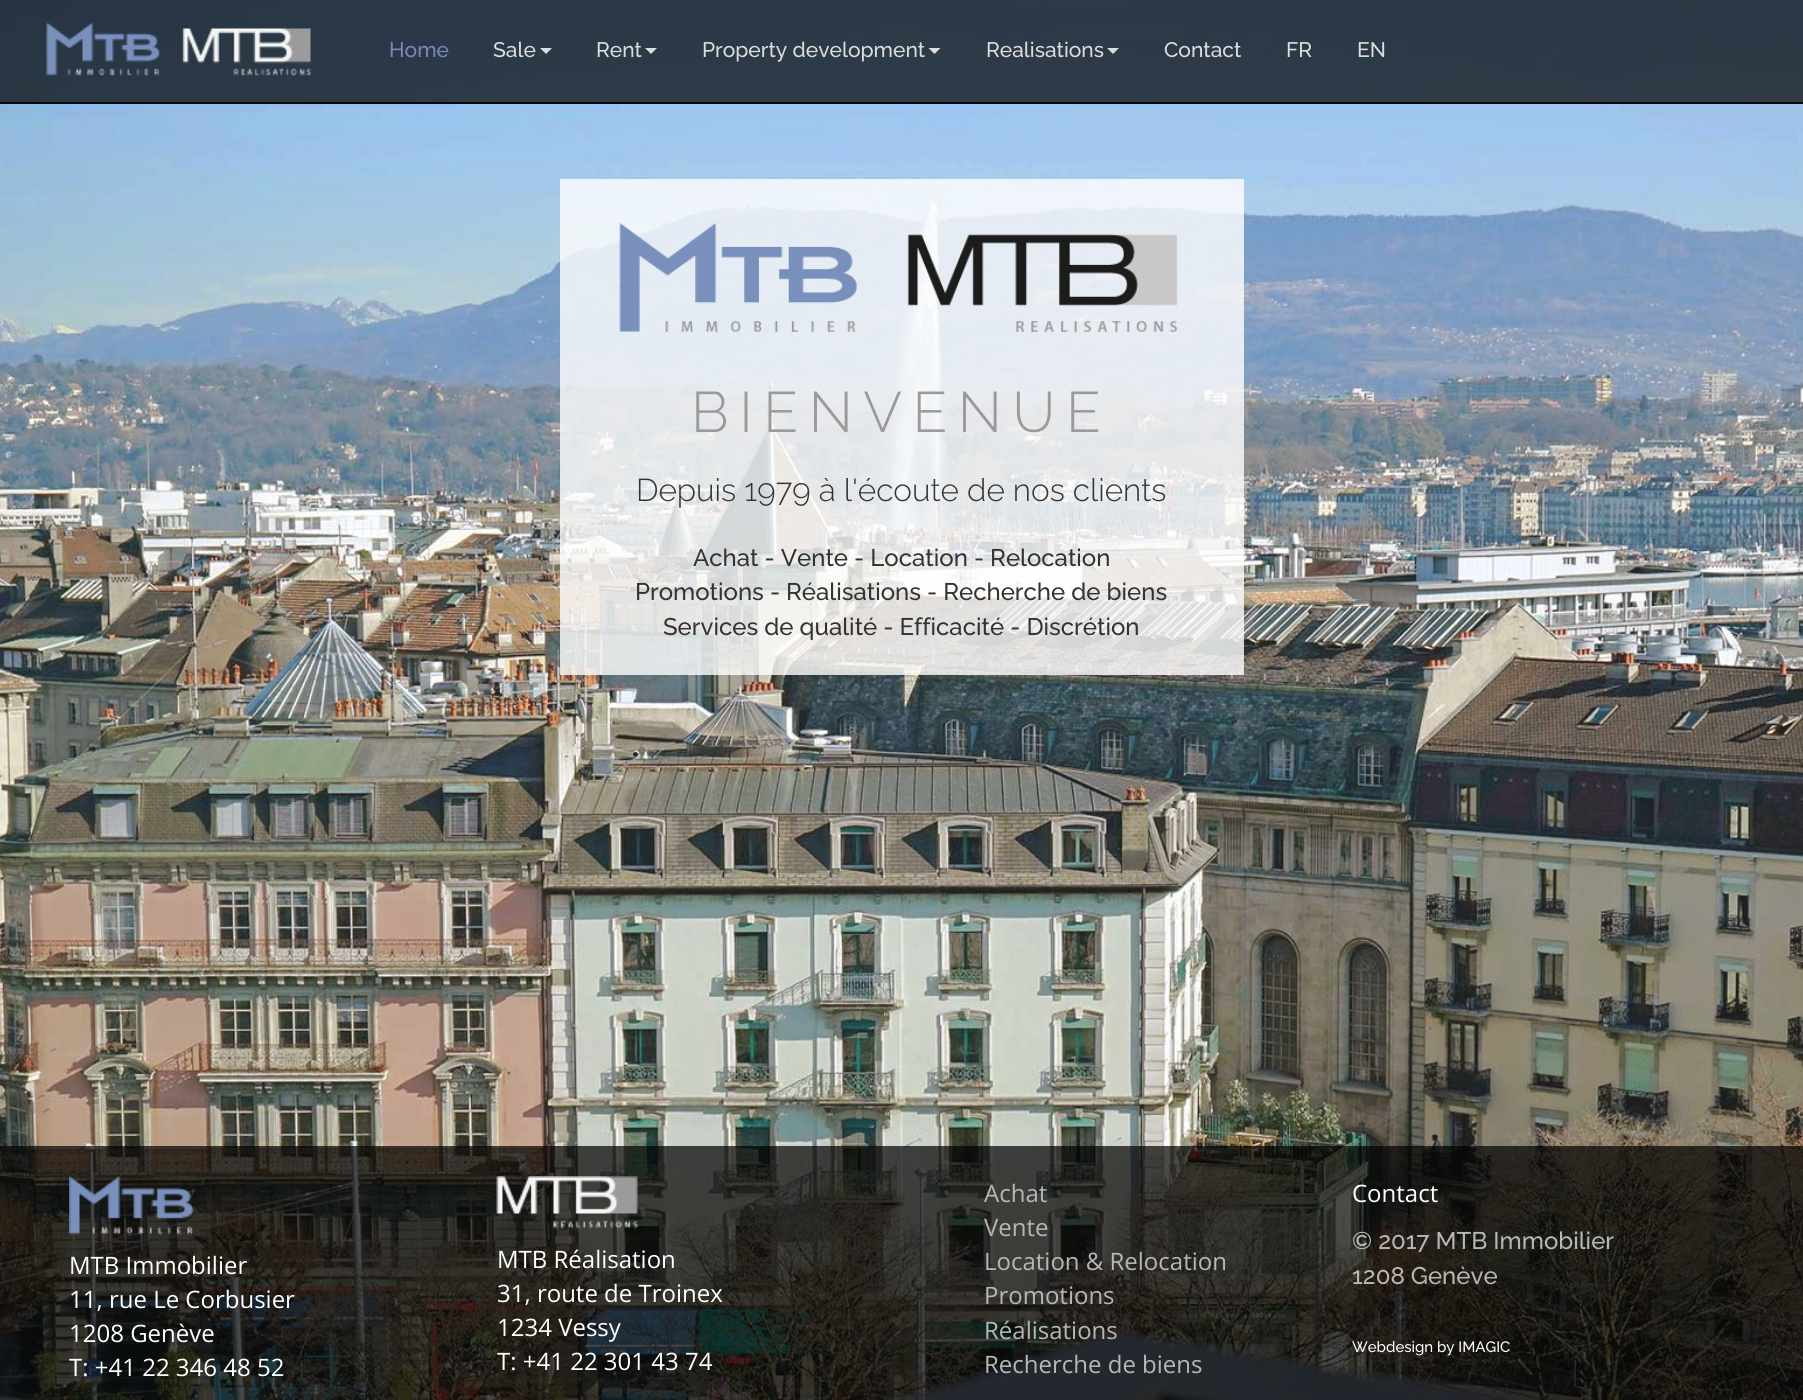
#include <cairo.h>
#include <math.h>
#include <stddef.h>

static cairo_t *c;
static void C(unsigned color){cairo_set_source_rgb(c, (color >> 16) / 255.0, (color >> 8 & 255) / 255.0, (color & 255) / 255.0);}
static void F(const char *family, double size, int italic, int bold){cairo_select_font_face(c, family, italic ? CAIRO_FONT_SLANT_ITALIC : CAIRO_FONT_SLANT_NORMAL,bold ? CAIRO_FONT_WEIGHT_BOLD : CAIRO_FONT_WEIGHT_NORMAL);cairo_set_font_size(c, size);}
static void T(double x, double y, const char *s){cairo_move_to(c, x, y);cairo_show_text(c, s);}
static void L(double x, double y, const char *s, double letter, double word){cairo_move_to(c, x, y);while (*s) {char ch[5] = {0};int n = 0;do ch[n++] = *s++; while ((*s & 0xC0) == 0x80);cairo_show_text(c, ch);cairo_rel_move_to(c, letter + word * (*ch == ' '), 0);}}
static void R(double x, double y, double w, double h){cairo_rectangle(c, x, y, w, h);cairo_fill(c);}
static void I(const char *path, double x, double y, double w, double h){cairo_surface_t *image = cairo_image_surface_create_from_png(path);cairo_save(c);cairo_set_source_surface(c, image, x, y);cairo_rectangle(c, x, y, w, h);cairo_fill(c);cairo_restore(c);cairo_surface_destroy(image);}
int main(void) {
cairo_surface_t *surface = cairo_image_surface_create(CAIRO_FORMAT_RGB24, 1803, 1400);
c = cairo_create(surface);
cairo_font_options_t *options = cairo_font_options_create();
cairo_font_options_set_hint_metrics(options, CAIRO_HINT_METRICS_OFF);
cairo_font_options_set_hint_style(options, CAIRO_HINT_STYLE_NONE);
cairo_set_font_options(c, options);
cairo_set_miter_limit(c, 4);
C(0xffffff);
cairo_paint(c);
I("1.png",0,0,1803,1400);
cairo_set_source_rgba(c,0,0,0,0.7);
R(0,0,1803,102);
C(0x080808);
R(0,102,1803,2);
I("2.png",46,22,265,54);
F("Raleway Medium",21,0,0);
C(0x7a89b8);
T(389,57,"Home");
C(0xdddddd);
T(493,57,"Sale");
cairo_new_path(c);
cairo_move_to(c,540,48);
cairo_line_to(c,552,48);
cairo_line_to(c,546,54);
cairo_close_path(c);
cairo_fill(c);
T(596,57,"Rent");
cairo_new_path(c);
cairo_move_to(c,645,48);
cairo_line_to(c,657,48);
cairo_line_to(c,651,54);
cairo_close_path(c);
cairo_fill(c);
T(702,57,"Property development");
cairo_new_path(c);
cairo_move_to(c,928.5,48);
cairo_line_to(c,940.5,48);
cairo_line_to(c,934.5,54);
cairo_close_path(c);
cairo_fill(c);
T(986,57,"Realisations");
cairo_new_path(c);
cairo_move_to(c,1107,48);
cairo_line_to(c,1119,48);
cairo_line_to(c,1113,54);
cairo_close_path(c);
cairo_fill(c);
T(1164,57,"Contact");
T(1286,57,"FR");
T(1357,57,"EN");
cairo_set_source_rgba(c,1,1,1,0.8);
R(560,179,684,496);
I("3.png",619,223,559,109);
F("Raleway Light",57,0,0);
C(0x9b9999);
L(691,432,"BIENVENUE",10.5,0);
F("Raleway Light",31.5,0,0);
C(0x333333);
T(636,501,"Depuis 1979 à l'écoute de nos clients");
F("Raleway Medium",24,0,0);
T(693,566,"Achat - Vente - Location - Relocation");
T(635,600,"Promotions - Réalisations - Recherche de biens");
T(663,635,"Services de qualité - Efficacité - Discrétion");
cairo_set_source_rgba(c,0,0,0,0.7);
R(0,1146,1803,254);
I("4.png",69,1176,125,59);
F("Open Sans",24,0,0);
C(0xffffff);
T(69,1274,"MTB Immobilier");
T(69,1308,"11, rue Le Corbusier");
T(69,1342,"1208 Genève");
T(69,1376,"T: +41 22 346 48 52");
I("5.png",496,1176,142,53);
T(497,1268,"MTB Réalisation");
T(497,1302,"31, route de Troinex");
T(497,1336,"1234 Vessy");
T(497,1370,"T: +41 22 301 43 74");
C(0xb7b7b7);
T(984,1202,"Achat");
T(984,1236,"Vente");
T(984,1270,"Location & Relocation");
T(984,1304,"Promotions");
T(984,1339,"Réalisations");
T(984,1373,"Recherche de biens");
C(0xffffff);
T(1352,1202,"Contact");
F("Raleway Medium",24,0,0);
C(0xb7b7b7);
T(1352,1249,"© 2017 MTB Immobilier");
T(1352,1284,"1208 Genève");
F("Raleway Medium",15,0,0);
C(0xffffff);
T(1352,1352,"Webdesign by IMAGIC");
cairo_surface_write_to_png(surface, "o.png");
cairo_font_options_destroy(options);
cairo_destroy(c);
cairo_surface_destroy(surface);
return 0;
}
